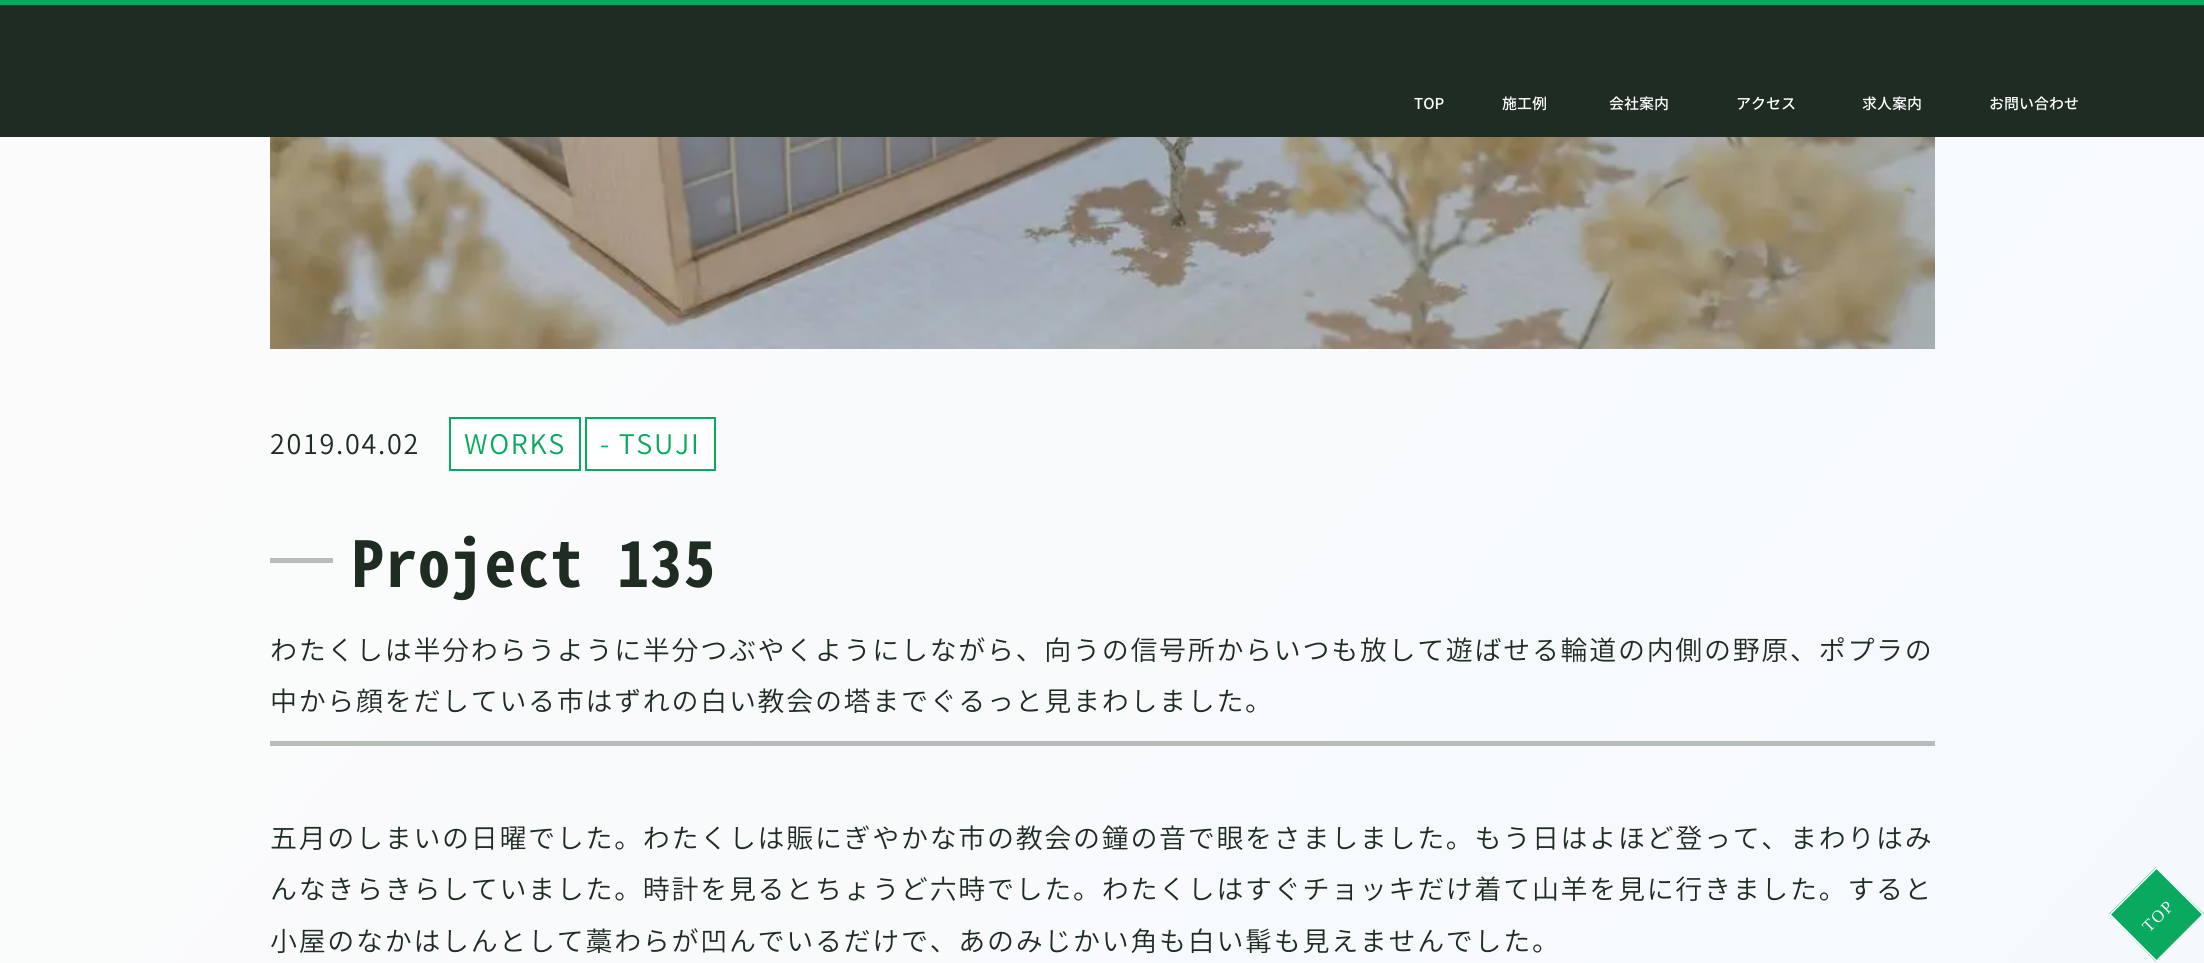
#include <cairo.h>
#include <math.h>
#include <stddef.h>

static cairo_t *c;
static void C(unsigned color){cairo_set_source_rgb(c, (color >> 16) / 255.0, (color >> 8 & 255) / 255.0, (color & 255) / 255.0);}
static void F(const char *family, double size, int italic, int bold){cairo_select_font_face(c, family, italic ? CAIRO_FONT_SLANT_ITALIC : CAIRO_FONT_SLANT_NORMAL,bold ? CAIRO_FONT_WEIGHT_BOLD : CAIRO_FONT_WEIGHT_NORMAL);cairo_set_font_size(c, size);}
static void T(double x, double y, const char *s){cairo_move_to(c, x, y);cairo_show_text(c, s);}
static void L(double x, double y, const char *s, double letter, double word){cairo_move_to(c, x, y);while (*s) {char ch[5] = {0};int n = 0;do ch[n++] = *s++; while ((*s & 0xC0) == 0x80);cairo_show_text(c, ch);cairo_rel_move_to(c, letter + word * (*ch == ' '), 0);}}
static void R(double x, double y, double w, double h){cairo_rectangle(c, x, y, w, h);cairo_fill(c);}
static void I(const char *path, double x, double y, double w, double h){cairo_surface_t *image = cairo_image_surface_create_from_png(path);cairo_save(c);cairo_set_source_surface(c, image, x, y);cairo_rectangle(c, x, y, w, h);cairo_fill(c);cairo_restore(c);cairo_surface_destroy(image);}
int main(void) {
cairo_surface_t *surface = cairo_image_surface_create(CAIRO_FORMAT_RGB24, 2204, 963);
c = cairo_create(surface);
cairo_font_options_t *options = cairo_font_options_create();
cairo_font_options_set_hint_metrics(options, CAIRO_HINT_METRICS_OFF);
cairo_font_options_set_hint_style(options, CAIRO_HINT_STYLE_NONE);
cairo_set_font_options(c, options);
cairo_set_miter_limit(c, 4);
cairo_pattern_t *gradient;
C(0xffffff);
cairo_paint(c);
gradient = cairo_pattern_create_linear(218,-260,1987,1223);
cairo_pattern_add_color_stop_rgba(gradient,.15,0.984,0.984,0.984,1);
cairo_pattern_add_color_stop_rgba(gradient,1,0.961,0.976,0.996,1);
cairo_set_source(c,gradient);
cairo_pattern_destroy(gradient);
R(0,137,2204,826);
gradient = cairo_pattern_create_linear(218,-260,1987,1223);
cairo_pattern_add_color_stop_rgba(gradient,.15,0.725,0.741,0.729,1);
cairo_pattern_add_color_stop_rgba(gradient,1,0.71,0.733,0.737,1);
cairo_set_source(c,gradient);
cairo_pattern_destroy(gradient);
R(270,741,1665,5);
C(0x1e2c22);
R(0,5,2204,132);
C(0x09a960);
R(0,0,2204,5);
F("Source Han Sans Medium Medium",15,0,0);
C(0xffffff);
T(1414,109,"TOP");
T(1502,109,"施工例");
T(1609,109,"会社案内");
T(1736,109,"アクセス");
T(1862,109,"求人案内");
T(1989,109,"お問い合わせ");
I("1.png",270,137,1665,212);
F("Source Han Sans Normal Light",27,0,0);
C(0x1e2c22);
L(270,454,"2019.04.02",1.68,0);
C(0xffffff);
cairo_rectangle(c,450,418,130,52);
cairo_fill_preserve(c);
C(0x09a960);
cairo_stroke(c);
L(464,454,"WORKS",1.68,0);
C(0xffffff);
cairo_rectangle(c,586,418,129,52);
cairo_fill_preserve(c);
C(0x09a960);
cairo_stroke(c);
L(600,454,"- TSUJI",1.68,0);
C(0xb8bdba);
R(270,558,63,5);
F("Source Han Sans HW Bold",63,0,1);
C(0x1e2c22);
L(352,587,"Project 135",1.68,0);
F("Source Han Sans Normal Light",27,0,0);
L(270,660,"わたくしは半分わらうように半分つぶやくようにしながら、向うの信号所からいつも放して遊ばせる輪道の内側の野原、ポプラの",1.68,0);
L(270,711,"中から顔をだしている市はずれの白い教会の塔までぐるっと見まわしました。",1.68,0);
L(270,848,"五月のしまいの日曜でした。わたくしは賑にぎやかな市の教会の鐘の音で眼をさましました。もう日はよほど登って、まわりはみ",1.68,0);
L(270,899,"んなきらきらしていました。時計を見るとちょうど六時でした。わたくしはすぐチョッキだけ着て山羊を見に行きました。すると",1.68,0);
L(270,951,"小屋のなかはしんとして藁わらが凹んでいるだけで、あのみじかい角も白い髯も見えませんでした。",1.68,0);
C(0x09a960);
cairo_new_path(c);
cairo_move_to(c,2109,914);
cairo_line_to(c,2156,867);
cairo_line_to(c,2204,914);
cairo_line_to(c,2156,962);
cairo_close_path(c);
cairo_fill(c);
cairo_new_path(c);
cairo_move_to(c,2110,914.5);
cairo_line_to(c,2156.5,868);
cairo_line_to(c,2203,914.5);
cairo_line_to(c,2156.5,961);
cairo_close_path(c);
C(0xffffff);
cairo_set_line_width(c,1.5);
cairo_stroke(c);
F("Liberation Serif",17,0,0);
cairo_save(c);
cairo_translate(c,2149,933);
cairo_rotate(c,-45 * M_PI / 180);
L(0,0,"TOP",1.68,0);
cairo_restore(c);
cairo_surface_write_to_png(surface, "o.png");
cairo_font_options_destroy(options);
cairo_destroy(c);
cairo_surface_destroy(surface);
return 0;
}
